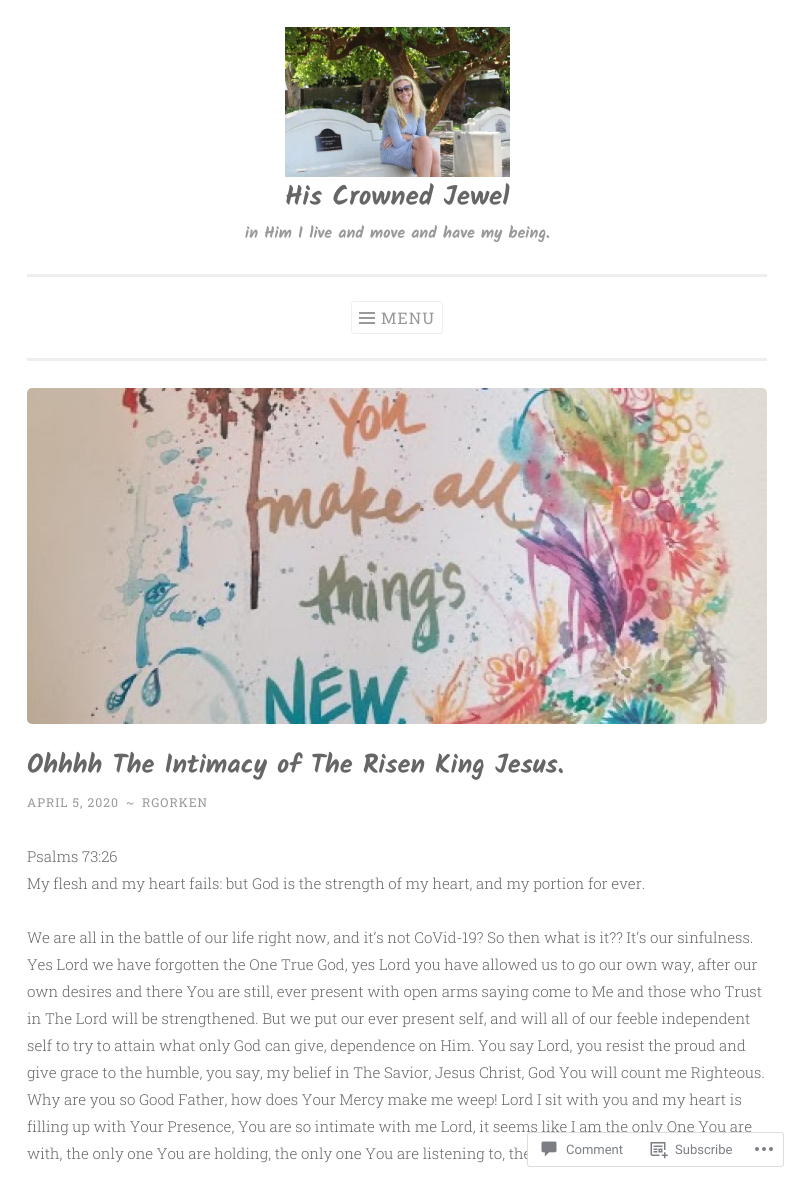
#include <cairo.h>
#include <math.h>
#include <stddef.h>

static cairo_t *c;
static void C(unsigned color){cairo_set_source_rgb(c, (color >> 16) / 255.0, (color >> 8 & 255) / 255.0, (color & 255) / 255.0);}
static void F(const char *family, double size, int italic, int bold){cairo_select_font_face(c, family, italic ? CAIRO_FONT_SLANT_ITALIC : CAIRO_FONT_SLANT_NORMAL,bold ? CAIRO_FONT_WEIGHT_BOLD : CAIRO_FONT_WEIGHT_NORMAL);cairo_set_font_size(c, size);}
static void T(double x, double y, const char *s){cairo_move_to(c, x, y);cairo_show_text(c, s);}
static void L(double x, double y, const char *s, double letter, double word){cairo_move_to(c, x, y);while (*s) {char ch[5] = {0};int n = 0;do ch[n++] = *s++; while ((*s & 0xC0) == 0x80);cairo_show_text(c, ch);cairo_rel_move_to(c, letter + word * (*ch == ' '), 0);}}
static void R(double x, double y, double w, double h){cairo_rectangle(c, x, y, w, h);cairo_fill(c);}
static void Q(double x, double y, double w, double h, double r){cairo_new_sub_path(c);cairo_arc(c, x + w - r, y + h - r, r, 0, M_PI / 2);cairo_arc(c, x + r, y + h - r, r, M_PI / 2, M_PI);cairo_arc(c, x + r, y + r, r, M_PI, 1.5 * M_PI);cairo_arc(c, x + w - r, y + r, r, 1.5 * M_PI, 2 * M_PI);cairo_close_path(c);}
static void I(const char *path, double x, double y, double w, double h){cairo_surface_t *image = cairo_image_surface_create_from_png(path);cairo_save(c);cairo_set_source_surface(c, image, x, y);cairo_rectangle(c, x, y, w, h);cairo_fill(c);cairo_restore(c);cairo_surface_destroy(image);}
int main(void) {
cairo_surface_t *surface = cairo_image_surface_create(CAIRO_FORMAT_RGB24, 794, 1177);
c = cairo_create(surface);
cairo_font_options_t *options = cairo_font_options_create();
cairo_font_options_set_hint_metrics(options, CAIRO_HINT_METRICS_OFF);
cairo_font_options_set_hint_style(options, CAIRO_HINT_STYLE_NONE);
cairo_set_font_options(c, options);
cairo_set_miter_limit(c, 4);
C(0xffffff);
cairo_paint(c);
C(0xeeeeee);
R(27,358,740,3);
I("1.png",285,27,225,150);
F("Kalam",27,0,1);
C(0x666666);
T(285,205,"His Crowned Jewel");
F("Kalam",16,0,1);
C(0x999999);
T(245,238,"in Him I live and move and have my being.");
C(0xeeeeee);
R(27,274,740,3);
Q(351.5,301.5,91,32,2.5);
cairo_set_line_width(c,1);
cairo_stroke(c);
I("2.png",359,312,16,12);
F("Roboto Slab",16,0,0);
C(0x999999);
L(381,324,"MENU",1,0);
I("3.png",27,388,740,336);
F("Kalam",26.25,0,1);
C(0x666666);
T(27,773,"Ohhhh The Intimacy of The Risen King Jesus.");
F("Roboto Slab",12.25,0,0);
C(0x999999);
L(27,807,"APRIL 5, 2020",1,0);
L(126,807,"~",1,0);
L(142,807,"RGORKEN",1,0);
F("Roboto Slab Light",15,0,0);
C(0x666666);
T(27,862,"Psalms 73:26");
T(27,889,"My flesh and my heart fails: but God is the strength of my heart, and my portion for ever.");
T(27,943,"We are all in the battle of our life right now, and it’s not CoVid-19? So then what is it?\077 It’s our sinfulness.");
T(27,970,"Yes Lord we have forgotten the One True God, yes Lord you have allowed us to go our own way, after our");
T(27,997,"own desires and there You are still, ever present with open arms saying come to Me and those who Trust");
T(27,1024,"in The Lord will be strengthened. But we put our ever present self, and will all of our feeble independent");
T(27,1051,"self to try to attain what only God can give, dependence on Him. You say Lord, you resist the proud and");
T(27,1078,"give grace to the humble, you say, my belief in The Savior, Jesus Christ, God You will count me Righteous.");
T(27,1105,"Why are you so Good Father, how does Your Mercy make me weep! Lord I sit with you and my heart is");
T(27,1132,"filling up with Your Presence, You are so intimate with me Lord, it seems like I am the only One You are");
T(27,1159,"with, the only one You are holding, the only one You are listening to, the");
cairo_set_source_rgba(c,1,1,1,0.98);
Q(527.5,1132.5,256,34,2.5);
cairo_fill_preserve(c);
C(0xdddddf);
cairo_stroke(c);
I("4.png",541,1141,16,16);
F("Roboto",13,0,0);
C(0x7b7f84);
T(566,1154,"Comment");
I("5.png",650,1142,18,17);
T(675,1154,"Subscribe");
I("6.png",755,1147,18,4);
cairo_surface_write_to_png(surface, "o.png");
cairo_font_options_destroy(options);
cairo_destroy(c);
cairo_surface_destroy(surface);
return 0;
}
